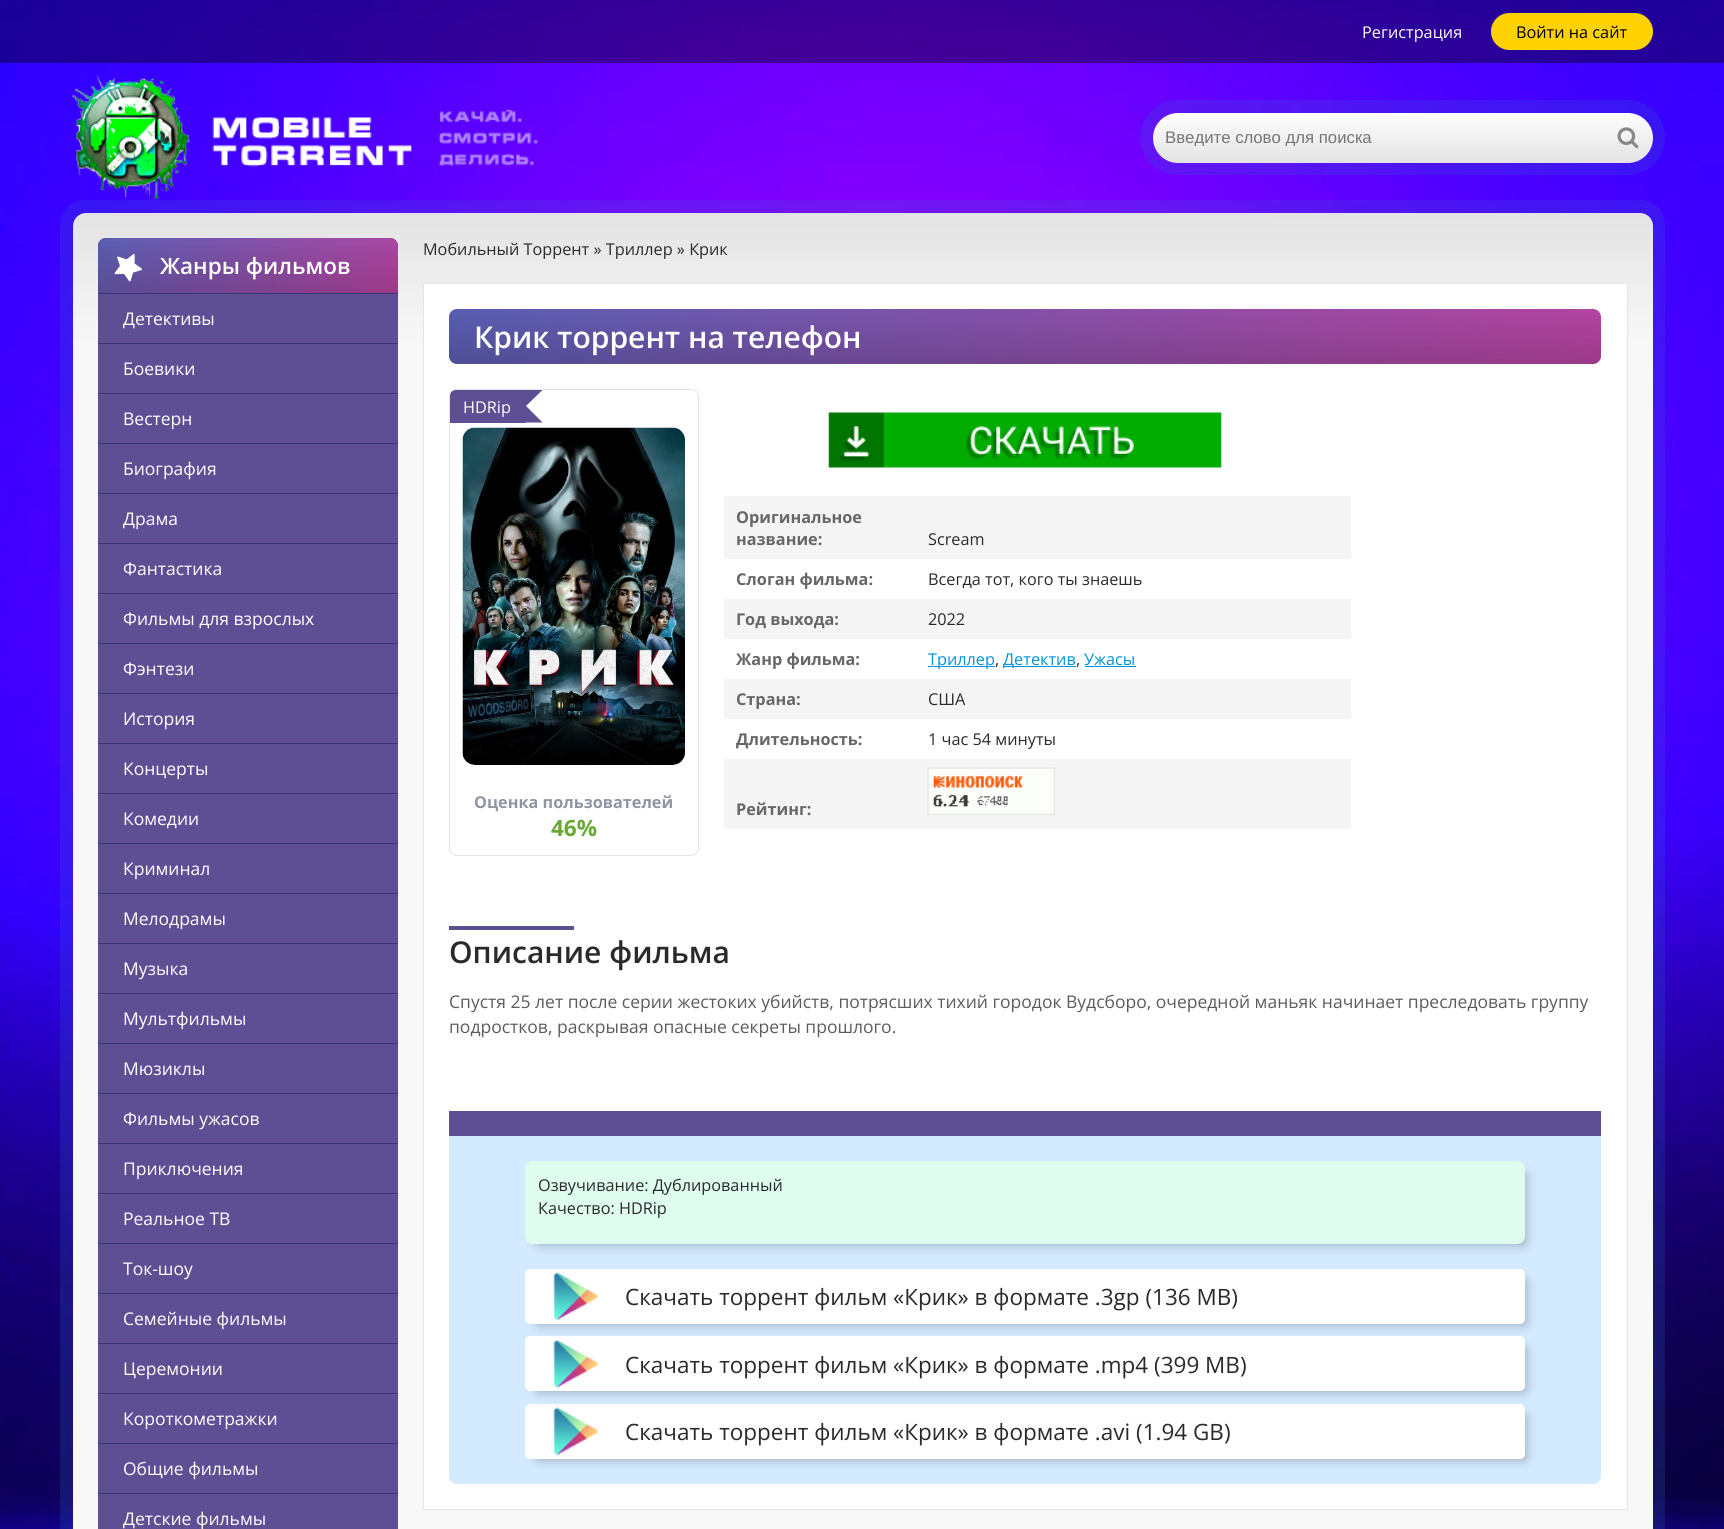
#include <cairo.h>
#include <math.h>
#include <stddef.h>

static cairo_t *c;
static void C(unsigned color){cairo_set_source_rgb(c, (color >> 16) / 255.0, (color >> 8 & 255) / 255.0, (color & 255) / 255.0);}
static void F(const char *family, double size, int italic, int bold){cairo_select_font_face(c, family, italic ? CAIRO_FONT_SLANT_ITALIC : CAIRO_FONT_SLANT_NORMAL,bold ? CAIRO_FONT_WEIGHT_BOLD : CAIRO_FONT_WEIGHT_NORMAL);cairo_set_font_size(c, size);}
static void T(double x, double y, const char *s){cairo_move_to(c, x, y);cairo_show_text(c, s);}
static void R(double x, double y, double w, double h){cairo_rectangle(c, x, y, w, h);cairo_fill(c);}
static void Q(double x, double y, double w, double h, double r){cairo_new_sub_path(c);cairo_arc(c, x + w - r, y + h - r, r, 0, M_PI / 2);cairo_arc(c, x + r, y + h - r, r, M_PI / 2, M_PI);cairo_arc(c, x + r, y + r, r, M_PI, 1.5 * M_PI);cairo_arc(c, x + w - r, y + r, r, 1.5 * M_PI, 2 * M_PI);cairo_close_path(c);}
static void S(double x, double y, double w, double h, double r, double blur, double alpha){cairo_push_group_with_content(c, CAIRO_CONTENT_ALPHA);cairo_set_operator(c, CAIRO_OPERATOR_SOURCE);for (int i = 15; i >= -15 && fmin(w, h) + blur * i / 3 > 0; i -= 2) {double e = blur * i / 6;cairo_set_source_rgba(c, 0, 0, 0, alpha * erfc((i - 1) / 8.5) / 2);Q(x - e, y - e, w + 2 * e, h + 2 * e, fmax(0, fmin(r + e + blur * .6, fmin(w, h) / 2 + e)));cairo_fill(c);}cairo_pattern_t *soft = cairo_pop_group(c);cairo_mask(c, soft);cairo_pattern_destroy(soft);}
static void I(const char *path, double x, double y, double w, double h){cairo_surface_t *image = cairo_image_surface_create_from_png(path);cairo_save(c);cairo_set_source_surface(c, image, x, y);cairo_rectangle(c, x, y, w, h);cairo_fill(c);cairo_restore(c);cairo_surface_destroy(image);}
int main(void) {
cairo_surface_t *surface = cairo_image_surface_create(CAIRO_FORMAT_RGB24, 1724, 1529);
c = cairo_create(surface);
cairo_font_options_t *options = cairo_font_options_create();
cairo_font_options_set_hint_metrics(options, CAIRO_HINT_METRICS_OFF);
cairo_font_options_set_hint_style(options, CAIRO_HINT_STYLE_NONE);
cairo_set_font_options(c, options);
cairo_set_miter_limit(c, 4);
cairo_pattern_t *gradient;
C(0xffffff);
cairo_paint(c);
I("1.png",0,0,1724,1529);
cairo_set_source_rgba(c,0,0,0,0.4);
R(0,0,1724,63);
F("Open Sans",16.25,0,0);
C(0xffffff);
T(1362,38,"Регистрация");
C(0xffd203);
Q(1491,13,162,37,18.5);
cairo_fill(c);
C(0x000000);
T(1516,38,"Войти на сайт");
I("2.png",72,75,466,124);
Q(1146.5,106.5,512,62,31);
cairo_set_source_rgba(c,0.192,0.416,0.788,0.2);
cairo_set_line_width(c,13);
cairo_stroke(c);
gradient = cairo_pattern_create_linear(1403,112,1403,163);
cairo_pattern_add_color_stop_rgba(gradient,0,1,1,1,1);
cairo_pattern_add_color_stop_rgba(gradient,1,0.89,0.89,0.89,1);
cairo_set_source(c,gradient);
cairo_pattern_destroy(gradient);
Q(1153,113,500,50,25);
cairo_fill(c);
cairo_save(c);
cairo_rectangle(c,1165,128,425,18);
cairo_clip(c);
F("Liberation Sans",16.75,0,0);
C(0x757575);
T(1165,143,"Введите слово для поиска");
cairo_restore(c);
I("3.png",1617,127,22,22);
Q(66.5,206.5,1592,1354,18.5);
cairo_set_source_rgba(c,0.192,0.416,0.788,0.2);
cairo_stroke(c);
gradient = cairo_pattern_create_linear(862,212,863,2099);
cairo_pattern_add_color_stop_rgba(gradient,0,0.89,0.89,0.89,1);
cairo_pattern_add_color_stop_rgba(gradient,.07,0.973,0.973,0.973,1);
cairo_set_source(c,gradient);
cairo_pattern_destroy(gradient);
Q(73,213,1580,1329,13);
cairo_fill(c);
C(0x5e4f95);
Q(98,238,300,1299,8);
cairo_fill(c);
cairo_new_path(c);
cairo_move_to(c,98,294);
cairo_line_to(c,98,295);
cairo_line_to(c,398,295);
cairo_line_to(c,398,247);
cairo_line_to(c,397,244);
cairo_line_to(c,398,294);
cairo_close_path(c);
cairo_fill(c);
gradient = cairo_pattern_create_linear(159,176,336,354);
cairo_pattern_add_color_stop_rgba(gradient,0,0.345,0.369,0.698,1);
cairo_pattern_add_color_stop_rgba(gradient,1,0.718,0.263,0.624,1);
cairo_set_source(c,gradient);
cairo_pattern_destroy(gradient);
cairo_new_path(c);
cairo_move_to(c,106,238);
cairo_line_to(c,390,238);
cairo_curve_to(c,394.5,238,398,241.5,398,246);
cairo_line_to(c,398,293);
cairo_line_to(c,98,293);
cairo_line_to(c,98,246);
cairo_curve_to(c,98,241.5,101.5,238,106,238);
cairo_close_path(c);
cairo_fill(c);
gradient = cairo_pattern_create_linear(248,238,248,293);
cairo_pattern_add_color_stop_rgba(gradient,0,0,0,0,0);
cairo_pattern_add_color_stop_rgba(gradient,1,0,0,0,.15);
cairo_set_source(c,gradient);
cairo_pattern_destroy(gradient);
R(98,246,300,47);
C(0x393476);
R(98,293,300,1);
I("4.png",114,254,28,28);
F("Open Sans SemiBold",22.5,0,0);
C(0xffffff);
T(160,274,"Жанры фильмов");
C(0x393476);
R(98,343,300,1);
F("Open Sans",17.5,0,0);
C(0xffffff);
T(123,325,"Детективы");
C(0x393476);
R(98,393,300,1);
C(0xffffff);
T(123,375,"Боевики");
C(0x393476);
R(98,443,300,1);
C(0xffffff);
T(123,425,"Вестерн");
C(0x393476);
R(98,493,300,1);
C(0xffffff);
T(123,475,"Биография");
C(0x393476);
R(98,543,300,1);
C(0xffffff);
T(123,525,"Драма");
C(0x393476);
R(98,593,300,1);
C(0xffffff);
T(123,575,"Фантастика");
C(0x393476);
R(98,643,300,1);
C(0xffffff);
T(123,625,"Фильмы для взрослых");
C(0x393476);
R(98,693,300,1);
C(0xffffff);
T(123,675,"Фэнтези");
C(0x393476);
R(98,743,300,1);
C(0xffffff);
T(123,725,"История");
C(0x393476);
R(98,793,300,1);
C(0xffffff);
T(123,775,"Концерты");
C(0x393476);
R(98,843,300,1);
C(0xffffff);
T(123,825,"Комедии");
C(0x393476);
R(98,893,300,1);
C(0xffffff);
T(123,875,"Криминал");
C(0x393476);
R(98,943,300,1);
C(0xffffff);
T(123,925,"Мелодрамы");
C(0x393476);
R(98,993,300,1);
C(0xffffff);
T(123,975,"Музыка");
C(0x393476);
R(98,1043,300,1);
C(0xffffff);
T(123,1025,"Мультфильмы");
C(0x393476);
R(98,1093,300,1);
C(0xffffff);
T(123,1075,"Мюзиклы");
C(0x393476);
R(98,1143,300,1);
C(0xffffff);
T(123,1125,"Фильмы ужасов");
C(0x393476);
R(98,1193,300,1);
C(0xffffff);
T(123,1175,"Приключения");
C(0x393476);
R(98,1243,300,1);
C(0xffffff);
T(123,1225,"Реальное ТВ");
C(0x393476);
R(98,1293,300,1);
C(0xffffff);
T(123,1275,"Ток-шоу");
C(0x393476);
R(98,1343,300,1);
C(0xffffff);
T(123,1325,"Семейные фильмы");
C(0x393476);
R(98,1393,300,1);
C(0xffffff);
T(123,1375,"Церемонии");
C(0x393476);
R(98,1443,300,1);
C(0xffffff);
T(123,1425,"Короткометражки");
C(0x393476);
R(98,1493,300,1);
C(0xffffff);
T(123,1475,"Общие фильмы");
T(123,1525,"Детские фильмы");
F("Open Sans",16.25,0,0);
C(0x2a2a2a);
T(423,255,"Мобильный Торрент » Триллер » Крик");
C(0xffffff);
cairo_rectangle(c,423.5,283.5,1204,1226);
cairo_fill_preserve(c);
C(0xe1e5e6);
cairo_set_line_width(c,1);
cairo_stroke(c);
gradient = cairo_pattern_create_linear(723,34,1327,638);
cairo_pattern_add_color_stop_rgba(gradient,0,0.345,0.369,0.698,1);
cairo_pattern_add_color_stop_rgba(gradient,1,0.718,0.263,0.624,1);
cairo_set_source(c,gradient);
cairo_pattern_destroy(gradient);
Q(449,309,1152,55,8);
cairo_fill(c);
gradient = cairo_pattern_create_linear(1025,309,1025,364);
cairo_pattern_add_color_stop_rgba(gradient,0,0,0,0,0);
cairo_pattern_add_color_stop_rgba(gradient,1,0,0,0,.15);
cairo_set_source(c,gradient);
cairo_pattern_destroy(gradient);
Q(449,309,1152,55,8);
cairo_fill(c);
F("Open Sans SemiBold",30,0,0);
C(0xffffff);
T(474,348,"Крик торрент на телефон");
Q(449.5,389.5,249,466,7.5);
C(0xe1e5e6);
cairo_stroke(c);
C(0x5e4f95);
cairo_new_path(c);
cairo_move_to(c,456,390);
cairo_line_to(c,510,390);
cairo_line_to(c,510,423);
cairo_line_to(c,450,423);
cairo_line_to(c,450,396);
cairo_curve_to(c,450,392.5,452.5,390,456,390);
cairo_close_path(c);
cairo_fill(c);
F("Open Sans",16.25,0,0);
C(0xffffff);
T(463,413,"HDRip");
C(0x5e4f95);
cairo_new_path(c);
cairo_move_to(c,510,390);
cairo_line_to(c,542.5,390);
cairo_line_to(c,526,406);
cairo_close_path(c);
cairo_move_to(c,542.5,422.5);
cairo_line_to(c,510,422.5);
cairo_line_to(c,526,406);
cairo_close_path(c);
cairo_fill(c);
R(510,390,16,33);
I("5.png",462,427,223,338);
F("Open Sans",16.25,0,1);
C(0x8f95a3);
T(474,808,"Оценка пользователей");
F("Open Sans",22.5,0,1);
C(0x69a935);
T(551,836,"46%");
I("6.png",828,412,394,56);
C(0xf5f5f5);
R(724,496,627,63);
F("Open Sans",16.25,0,1);
C(0x676767);
T(736,523,"Оригинальное");
T(736,545,"название:");
F("Open Sans",16.25,0,0);
C(0x2a2a2a);
T(928,545,"Scream");
F("Open Sans",16.25,0,1);
C(0x676767);
T(736,585,"Слоган фильма:");
F("Open Sans",16.25,0,0);
C(0x2a2a2a);
T(928,585,"Всегда тот, кого ты знаешь");
C(0xf5f5f5);
R(724,599,627,40);
F("Open Sans",16.25,0,1);
C(0x676767);
T(736,625,"Год выхода:");
F("Open Sans",16.25,0,0);
C(0x2a2a2a);
T(928,625,"2022");
F("Open Sans",16.25,0,1);
C(0x676767);
T(736,665,"Жанр фильма:");
C(0x0294d9);
R(928,666,67,1);
F("Open Sans",16.25,0,0);
T(928,665,"Триллер");
C(0x2a2a2a);
T(995,665,",");
C(0x0294d9);
R(1004,666,72,1);
T(1003,665,"Детектив");
C(0x2a2a2a);
T(1076,665,",");
C(0x0294d9);
T(1084,665,"Ужасы");
R(1085,666,51,1);
C(0xf5f5f5);
R(724,679,627,40);
F("Open Sans",16.25,0,1);
C(0x676767);
T(736,705,"Страна:");
F("Open Sans",16.25,0,0);
C(0x2a2a2a);
T(928,705,"США");
F("Open Sans",16.25,0,1);
C(0x676767);
T(736,745,"Длительность:");
F("Open Sans",16.25,0,0);
C(0x2a2a2a);
T(928,745,"1 час 54 минуты");
C(0xf5f5f5);
R(724,759,627,70);
F("Open Sans",16.25,0,1);
C(0x676767);
T(736,815,"Рейтинг:");
I("7.png",927,767,128,48);
C(0x5e4f95);
R(449,926,125,4);
F("Open Sans SemiBold",30,0,0);
C(0x2a2a2a);
T(449,963,"Описание фильма");
F("Open Sans",17.5,0,0);
C(0x5c5c5c);
T(449,1008,"Спустя 25 лет после серии жестоких убийств, потрясших тихий городок Вудсборо, очередной маньяк начинает преследовать группу");
T(449,1033,"подростков, раскрывая опасные секреты прошлого.");
C(0xd4eaff);
Q(449,1111,1152,373,8);
cairo_fill(c);
C(0x5e4f95);
R(449,1111,1152,25);
C(0x000000);
S(538,1174,987,70,1,6,.3);
C(0xdffdef);
Q(525,1161,1000,83,8);
cairo_fill(c);
F("Open Sans",16.25,0,0);
C(0x2a2a2a);
T(538,1191,"Озвучивание: Дублированный");
T(538,1214,"Качество: HDRip");
C(0x000000);
S(538,1281,987,43,0,6,.3);
C(0xffffff);
Q(525,1269,1000,55,5);
cairo_fill(c);
I("8.png",553,1272,45,49);
F("Open Sans",22.5,0,0);
C(0x2a2a2a);
T(625,1305,"Скачать торрент фильм «Крик» в формате .3gp (136 MB)");
C(0x000000);
S(538,1349,987,42,0,6,.3);
C(0xffffff);
Q(525,1336,1000,55,5);
cairo_fill(c);
I("9.png",553,1339,45,49);
C(0x2a2a2a);
T(625,1373,"Скачать торрент фильм «Крик» в формате .mp4 (399 MB)");
C(0x000000);
S(538,1416,987,43,0,6,.3);
C(0xffffff);
Q(525,1404,1000,55,5);
cairo_fill(c);
I("8.png",553,1407,45,49);
C(0x2a2a2a);
T(625,1440,"Скачать торрент фильм «Крик» в формате .avi (1.94 GB)");
cairo_surface_write_to_png(surface, "o.png");
cairo_font_options_destroy(options);
cairo_destroy(c);
cairo_surface_destroy(surface);
return 0;
}
